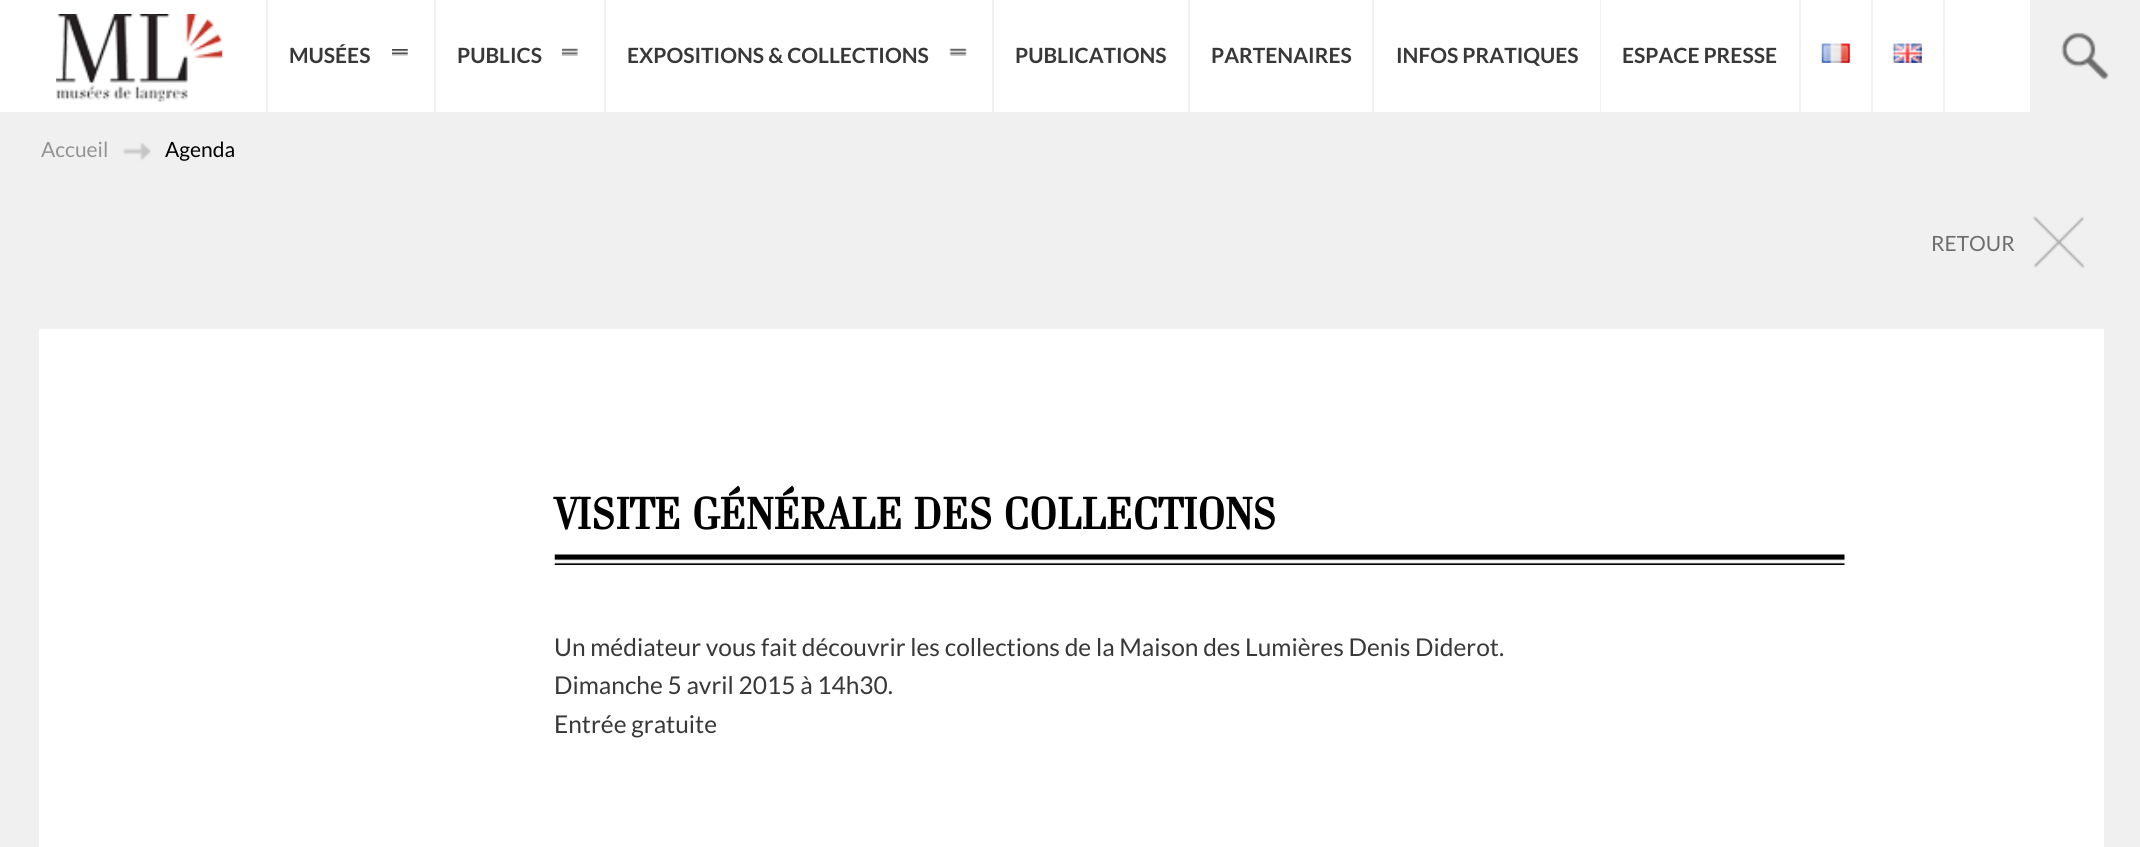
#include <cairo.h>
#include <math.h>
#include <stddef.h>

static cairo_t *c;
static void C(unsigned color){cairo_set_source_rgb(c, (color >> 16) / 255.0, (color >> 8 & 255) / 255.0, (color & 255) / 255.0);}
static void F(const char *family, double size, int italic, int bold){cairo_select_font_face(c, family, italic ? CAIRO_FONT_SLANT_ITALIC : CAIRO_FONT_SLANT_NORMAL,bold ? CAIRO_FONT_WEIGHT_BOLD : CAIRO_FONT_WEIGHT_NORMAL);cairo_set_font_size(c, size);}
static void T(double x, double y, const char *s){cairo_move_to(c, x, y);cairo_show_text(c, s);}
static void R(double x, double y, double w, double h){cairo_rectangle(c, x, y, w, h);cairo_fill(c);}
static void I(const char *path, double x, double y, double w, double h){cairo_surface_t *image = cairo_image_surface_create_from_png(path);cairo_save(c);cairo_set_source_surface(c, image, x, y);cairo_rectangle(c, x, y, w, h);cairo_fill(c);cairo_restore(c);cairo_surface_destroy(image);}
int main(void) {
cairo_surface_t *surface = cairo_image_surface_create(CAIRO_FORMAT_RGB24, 2140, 847);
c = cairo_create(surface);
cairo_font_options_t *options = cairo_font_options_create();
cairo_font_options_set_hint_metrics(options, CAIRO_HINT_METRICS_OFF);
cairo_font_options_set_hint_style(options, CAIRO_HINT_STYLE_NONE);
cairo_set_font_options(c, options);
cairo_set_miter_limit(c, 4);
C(0xf0f0f0);
cairo_paint(c);
C(0xffffff);
R(0,0,2030,112);
I("1.png",56,14,167,88);
C(0xf0f0f0);
R(434,0,2,112);
R(266,0,2,112);
F("Lato",21,0,1);
C(0x383838);
T(289,63,"MUSÉES");
I("2.png",392,49,16,7);
C(0xf0f0f0);
R(604,0,2,112);
C(0x383838);
T(457,63,"PUBLICS");
I("3.png",562,48,16,8);
C(0xf0f0f0);
R(992,0,2,112);
C(0x383838);
T(627,63,"EXPOSITIONS & COLLECTIONS");
I("4.png",949,48,18,8);
C(0xf0f0f0);
R(1188,0,2,112);
C(0x383838);
T(1015,63,"PUBLICATIONS");
C(0xf0f0f0);
R(1372,0,2,112);
C(0x383838);
T(1211,63,"PARTENAIRES");
C(0xf0f0f0);
R(1600,0,1,112);
C(0x383838);
T(1396,63,"INFOS PRATIQUES");
C(0xf0f0f0);
R(1799,0,2,112);
C(0x383838);
T(1622,63,"ESPACE PRESSE");
C(0xf0f0f0);
R(1871,0,2,112);
I("5.png",1821,43,29,20);
R(1943,0,2,112);
I("6.png",1892,43,30,20);
I("7.png",2061,32,48,48);
F("Lato",21,0,0);
C(0x949494);
T(41,157,"Accueil");
I("8.png",122,142,29,19);
C(0x000000);
T(165,157,"Agenda");
I("9.png",2033,216,52,52);
C(0x6e6e6e);
T(1931,251,"RETOUR");
C(0xffffff);
R(39,329,2065,518);
I("10.png",554,554,1291,11);
F("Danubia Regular",42,0,1);
C(0x000000);
T(554,529,"VISITE GÉNÉRALE DES COLLECTIONS");
F("Lato",24.5,0,0);
C(0x383838);
T(554,656,"Un médiateur vous fait découvrir les collections de la Maison des Lumières Denis Diderot.");
T(554,694,"Dimanche 5 avril 2015 à 14h30.");
T(554,733,"Entrée gratuite");
cairo_surface_write_to_png(surface, "o.png");
cairo_font_options_destroy(options);
cairo_destroy(c);
cairo_surface_destroy(surface);
return 0;
}
